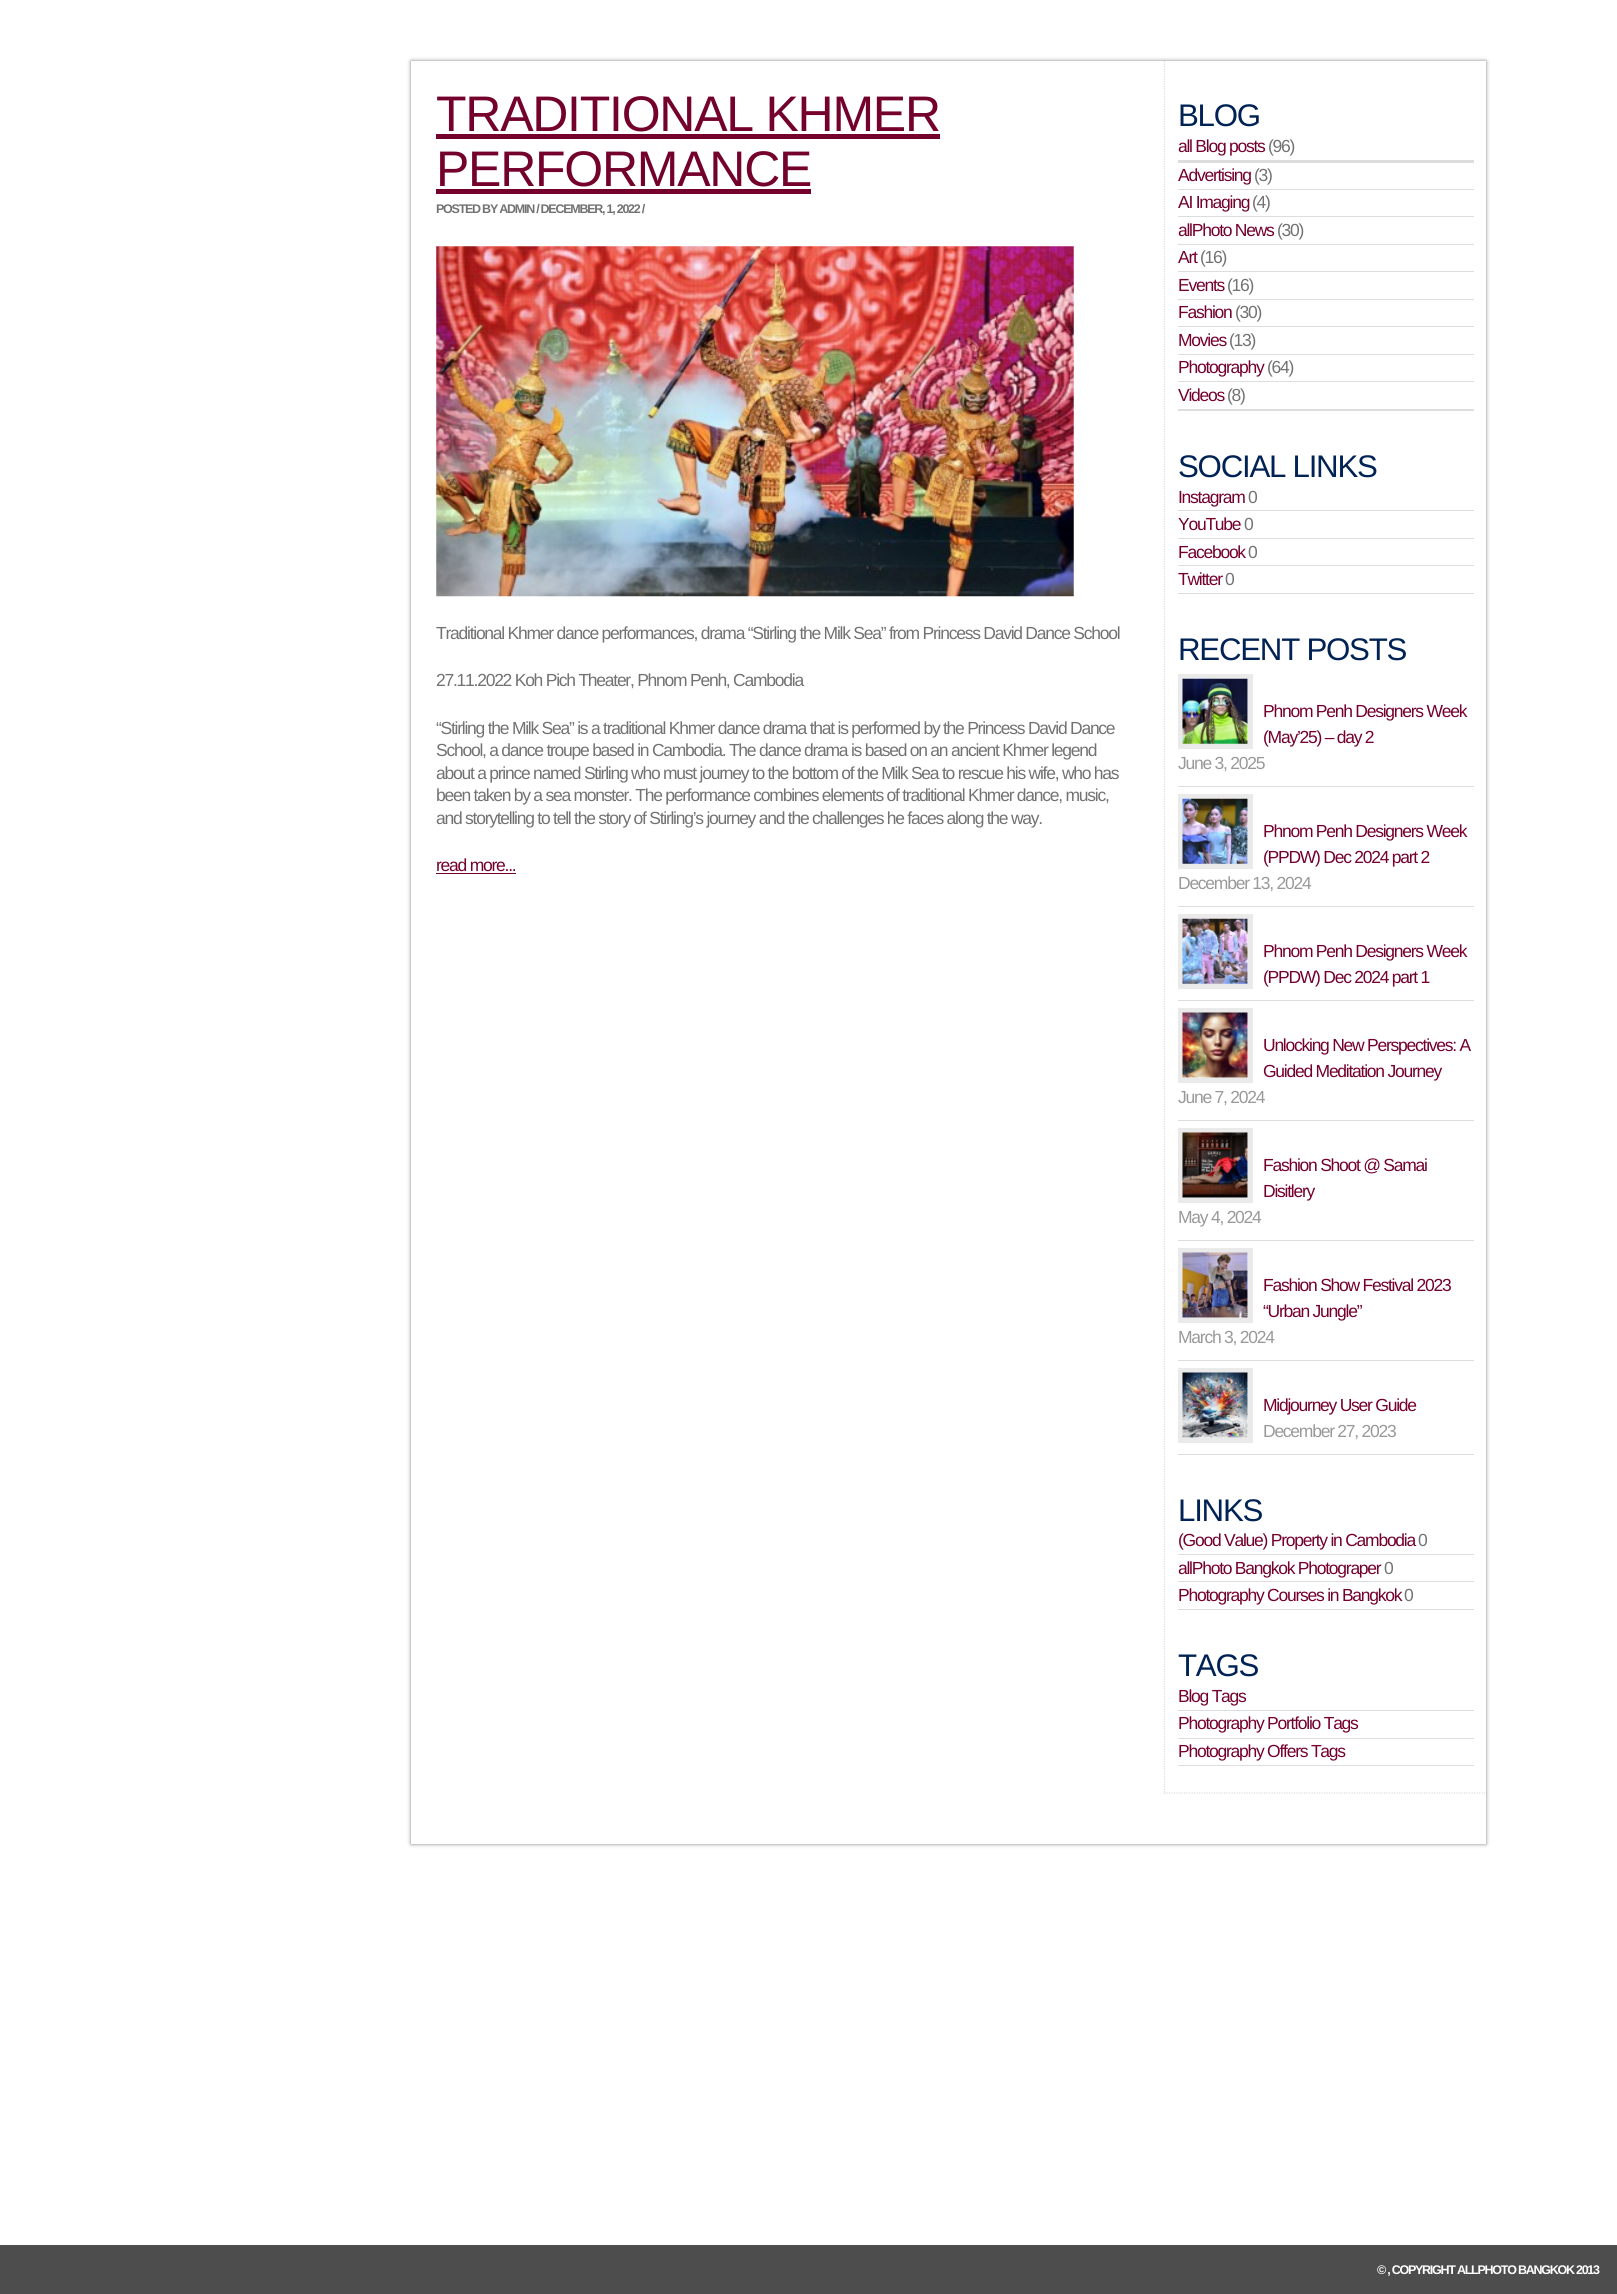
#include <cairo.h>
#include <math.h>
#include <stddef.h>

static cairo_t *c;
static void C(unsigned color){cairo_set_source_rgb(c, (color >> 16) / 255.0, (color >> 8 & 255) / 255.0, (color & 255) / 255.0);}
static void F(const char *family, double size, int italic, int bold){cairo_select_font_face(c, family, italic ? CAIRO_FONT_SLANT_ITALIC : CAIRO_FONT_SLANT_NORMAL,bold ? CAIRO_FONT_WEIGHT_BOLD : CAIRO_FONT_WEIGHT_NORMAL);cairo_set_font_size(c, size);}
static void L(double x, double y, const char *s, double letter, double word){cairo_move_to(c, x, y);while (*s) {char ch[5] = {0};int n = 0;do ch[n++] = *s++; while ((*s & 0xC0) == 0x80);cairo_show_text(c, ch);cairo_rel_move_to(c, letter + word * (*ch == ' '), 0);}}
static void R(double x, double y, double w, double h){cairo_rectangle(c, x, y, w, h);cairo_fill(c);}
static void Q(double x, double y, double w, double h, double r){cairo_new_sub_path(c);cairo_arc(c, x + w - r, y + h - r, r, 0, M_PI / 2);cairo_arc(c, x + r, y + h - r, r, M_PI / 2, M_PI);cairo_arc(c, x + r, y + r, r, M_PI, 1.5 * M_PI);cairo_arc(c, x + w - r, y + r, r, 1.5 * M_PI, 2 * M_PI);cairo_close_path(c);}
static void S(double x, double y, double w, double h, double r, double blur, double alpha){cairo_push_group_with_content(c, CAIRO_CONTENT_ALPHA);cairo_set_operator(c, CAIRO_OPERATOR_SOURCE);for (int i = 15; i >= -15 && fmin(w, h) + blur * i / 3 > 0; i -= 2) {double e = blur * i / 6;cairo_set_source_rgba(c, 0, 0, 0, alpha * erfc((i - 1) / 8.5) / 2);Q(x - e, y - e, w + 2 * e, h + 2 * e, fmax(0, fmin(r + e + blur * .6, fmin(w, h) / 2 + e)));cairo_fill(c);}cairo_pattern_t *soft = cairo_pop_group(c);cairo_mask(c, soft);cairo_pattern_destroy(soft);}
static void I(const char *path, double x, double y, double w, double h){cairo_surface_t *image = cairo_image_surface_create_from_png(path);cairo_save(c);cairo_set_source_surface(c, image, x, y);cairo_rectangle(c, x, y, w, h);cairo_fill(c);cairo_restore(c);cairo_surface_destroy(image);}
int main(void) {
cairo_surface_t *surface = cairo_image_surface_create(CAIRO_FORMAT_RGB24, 1617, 2294);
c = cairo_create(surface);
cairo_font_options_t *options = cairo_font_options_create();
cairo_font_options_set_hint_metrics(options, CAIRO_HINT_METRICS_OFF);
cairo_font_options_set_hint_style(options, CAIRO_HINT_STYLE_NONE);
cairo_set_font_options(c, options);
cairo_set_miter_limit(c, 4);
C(0xffffff);
cairo_paint(c);
C(0x000000);
S(411,61,1075,1783,0,2,.5);
C(0xffffff);
R(411,61,1075,1783);
F("Liberation Sans",50,0,0);
C(0x74002c);
L(436,131,"TRADITIONAL KHMER",-1.25,0);
R(436,134,504,5);
L(436,186,"PERFORMANCE",-1.25,0);
R(436,189,375,5);
F("Liberation Sans",12.5,0,1);
C(0x727272);
L(436,213,"POSTED BY ADMIN / DECEMBER, 1, 2022 /",-1.25,0);
I("1.png",436,246,638,351);
F("Liberation Sans",17.5,0,0);
L(436,639,"Traditional Khmer dance performances, drama “Stirling the Milk Sea” from Princess David Dance School",-1.25,0);
L(436,686,"27.11.2022 Koh Pich Theater, Phnom Penh, Cambodia",-1.25,0);
L(436,734,"“Stirling the Milk Sea” is a traditional Khmer dance drama that is performed by the Princess David Dance",-1.25,0);
L(436,756,"School, a dance troupe based in Cambodia. The dance drama is based on an ancient Khmer legend",-1.25,0);
L(436,779,"about a prince named Stirling who must journey to the bottom of the Milk Sea to rescue his wife, who has",-1.25,0);
L(436,801,"been taken by a sea monster. The performance combines elements of traditional Khmer dance, music,",-1.25,0);
L(436,824,"and storytelling to tell the story of Stirling’s journey and the challenges he faces along the way.",-1.25,0);
C(0x74002c);
L(436,871,"read more...",-1.25,0);
R(436,873,80,1);
cairo_new_path(c);
cairo_move_to(c,1164,1793);
cairo_line_to(c,1486,1793);
C(0xdddddd);
cairo_set_line_width(c,1.2);
cairo_set_dash(c,(double[]){1.25,1.25},2,0);
cairo_stroke(c);
cairo_new_path(c);
cairo_move_to(c,1164.5,61);
cairo_line_to(c,1164.5,1794);
cairo_stroke(c);
F("Liberation Sans",31.25,0,0);
C(0x002254);
L(1178,126,"BLOG",-1.25,0);
C(0xdddddd);
R(1178,409,296,2);
F("Liberation Sans",17.5,0,0);
C(0x74002c);
L(1178,152,"all Blog posts",-1.25,0);
C(0x727272);
L(1268,152,"(96)",-1.25,0);
C(0xdddddd);
R(1178,160,296,3);
R(1178,189,296,1);
C(0x74002c);
L(1178,181,"Advertising",-1.25,0);
C(0x727272);
L(1254,181,"(3)",-1.25,0);
C(0xdddddd);
R(1178,216,296,1);
C(0x74002c);
L(1178,208,"AI Imaging",-1.25,0);
C(0x727272);
L(1252,208,"(4)",-1.25,0);
C(0xdddddd);
R(1178,244,296,1);
C(0x74002c);
L(1178,236,"allPhoto News",-1.25,0);
C(0x727272);
L(1277,236,"(30)",-1.25,0);
C(0xdddddd);
R(1178,271,296,1);
C(0x74002c);
L(1178,263,"Art",-1.25,0);
C(0x727272);
L(1200,263,"(16)",-1.25,0);
C(0xdddddd);
R(1178,299,296,1);
C(0x74002c);
L(1178,291,"Events",-1.25,0);
C(0x727272);
L(1227,291,"(16)",-1.25,0);
C(0xdddddd);
R(1178,326,296,1);
C(0x74002c);
L(1178,318,"Fashion",-1.25,0);
C(0x727272);
L(1235,318,"(30)",-1.25,0);
C(0xdddddd);
R(1178,354,296,1);
C(0x74002c);
L(1178,346,"Movies",-1.25,0);
C(0x727272);
L(1229,346,"(13)",-1.25,0);
C(0xdddddd);
R(1178,381,296,1);
C(0x74002c);
L(1178,373,"Photography",-1.25,0);
C(0x727272);
L(1267,373,"(64)",-1.25,0);
C(0x74002c);
L(1178,401,"Videos",-1.25,0);
C(0x727272);
L(1227,401,"(8)",-1.25,0);
F("Liberation Sans",31.25,0,0);
C(0x002254);
L(1178,477,"SOCIAL LINKS",-1.25,0);
C(0xdddddd);
R(1178,510,296,1);
F("Liberation Sans",17.5,0,0);
C(0x74002c);
L(1178,503,"Instagram",-1.25,0);
C(0x727272);
L(1248,503,"0",-1.25,0);
C(0xdddddd);
R(1178,538,296,1);
C(0x74002c);
L(1178,530,"YouTube",-1.25,0);
C(0x727272);
L(1244,530,"0",-1.25,0);
C(0xdddddd);
R(1178,565,296,1);
C(0x74002c);
L(1178,558,"Facebook",-1.25,0);
C(0x727272);
L(1248,558,"0",-1.25,0);
C(0xdddddd);
R(1178,593,296,1);
C(0x74002c);
L(1178,585,"Twitter",-1.25,0);
C(0x727272);
L(1225,585,"0",-1.25,0);
F("Liberation Sans",31.25,0,0);
C(0x002254);
L(1178,660,"RECENT POSTS",-1.25,0);
C(0xdddddd);
R(1178,786,296,1);
cairo_rectangle(c,1180.5,676.5,70,70);
C(0xeaeaea);
cairo_set_line_width(c,5);
cairo_set_dash(c,NULL,0,0);
cairo_stroke(c);
I("2.png",1182,678,66,66);
F("Liberation Sans",17.5,0,0);
C(0x74002c);
L(1263,717,"Phnom Penh Designers Week",-1.25,0);
L(1263,743,"(May’25) – day 2",-1.25,0);
C(0x999999);
L(1178,769,"June 3, 2025",-1.25,0);
C(0xdddddd);
R(1178,906,296,1);
cairo_rectangle(c,1180.5,796.5,70,70);
C(0xeaeaea);
cairo_stroke(c);
I("3.png",1182,798,66,66);
C(0x74002c);
L(1263,837,"Phnom Penh Designers Week",-1.25,0);
L(1263,863,"(PPDW) Dec 2024 part 2",-1.25,0);
C(0x999999);
L(1178,889,"December 13, 2024",-1.25,0);
C(0xdddddd);
R(1178,1000,296,1);
cairo_rectangle(c,1180.5,916.5,70,70);
C(0xeaeaea);
cairo_stroke(c);
I("4.png",1182,918,66,66);
C(0x74002c);
L(1263,957,"Phnom Penh Designers Week",-1.25,0);
L(1263,983,"(PPDW) Dec 2024 part 1",-1.25,0);
C(0xdddddd);
R(1178,1120,296,1);
cairo_rectangle(c,1180.5,1010.5,70,70);
C(0xeaeaea);
cairo_stroke(c);
I("5.png",1182,1012,66,66);
C(0x74002c);
L(1263,1051,"Unlocking New Perspectives: A",-1.25,0);
L(1263,1077,"Guided Meditation Journey",-1.25,0);
C(0x999999);
L(1178,1103,"June 7, 2024",-1.25,0);
C(0xdddddd);
R(1178,1240,296,1);
cairo_rectangle(c,1180.5,1130.5,70,70);
C(0xeaeaea);
cairo_stroke(c);
I("6.png",1182,1132,66,66);
C(0x74002c);
L(1263,1171,"Fashion Shoot @ Samai",-1.25,0);
L(1263,1197,"Disitlery",-1.25,0);
C(0x999999);
L(1178,1223,"May 4, 2024",-1.25,0);
C(0xdddddd);
R(1178,1360,296,1);
cairo_rectangle(c,1180.5,1250.5,70,70);
C(0xeaeaea);
cairo_stroke(c);
I("7.png",1182,1252,66,66);
C(0x74002c);
L(1263,1291,"Fashion Show Festival 2023",-1.25,0);
L(1263,1317,"“Urban Jungle”",-1.25,0);
C(0x999999);
L(1178,1343,"March 3, 2024",-1.25,0);
C(0xdddddd);
R(1178,1454,296,1);
cairo_rectangle(c,1180.5,1370.5,70,70);
C(0xeaeaea);
cairo_stroke(c);
I("8.png",1182,1372,66,66);
C(0x74002c);
L(1263,1411,"Midjourney User Guide",-1.25,0);
C(0x999999);
L(1263,1437,"December 27, 2023",-1.25,0);
F("Liberation Sans",31.25,0,0);
C(0x002254);
L(1178,1521,"LINKS",-1.25,0);
C(0xdddddd);
R(1178,1554,296,1);
F("Liberation Sans",17.5,0,0);
C(0x74002c);
L(1178,1546,"(Good Value) Property in Cambodia",-1.25,0);
C(0x727272);
L(1418,1546,"0",-1.25,0);
C(0xdddddd);
R(1178,1581,296,1);
C(0x74002c);
L(1178,1574,"allPhoto Bangkok Photograper",-1.25,0);
C(0x727272);
L(1384,1574,"0",-1.25,0);
C(0xdddddd);
R(1178,1609,296,1);
C(0x74002c);
L(1178,1601,"Photography Courses in Bangkok",-1.25,0);
C(0x727272);
L(1404,1601,"0",-1.25,0);
F("Liberation Sans",31.25,0,0);
C(0x002254);
L(1178,1676,"TAGS",-1.25,0);
C(0xdddddd);
R(1178,1710,296,1);
F("Liberation Sans",17.5,0,0);
C(0x74002c);
L(1178,1702,"Blog Tags",-1.25,0);
C(0xdddddd);
R(1178,1738,296,1);
C(0x74002c);
L(1178,1729,"Photography Portfolio Tags",-1.25,0);
C(0xdddddd);
R(1178,1765,296,1);
C(0x74002c);
L(1178,1757,"Photography Offers Tags",-1.25,0);
C(0x4d4d4d);
R(0,2245,1617,49);
F("Liberation Sans",12.5,0,1);
C(0xffffff);
L(1377,2274,"© , COPYRIGHT ALLPHOTO BANGKOK 2013",-1.25,0);
cairo_surface_write_to_png(surface, "o.png");
cairo_font_options_destroy(options);
cairo_destroy(c);
cairo_surface_destroy(surface);
return 0;
}
